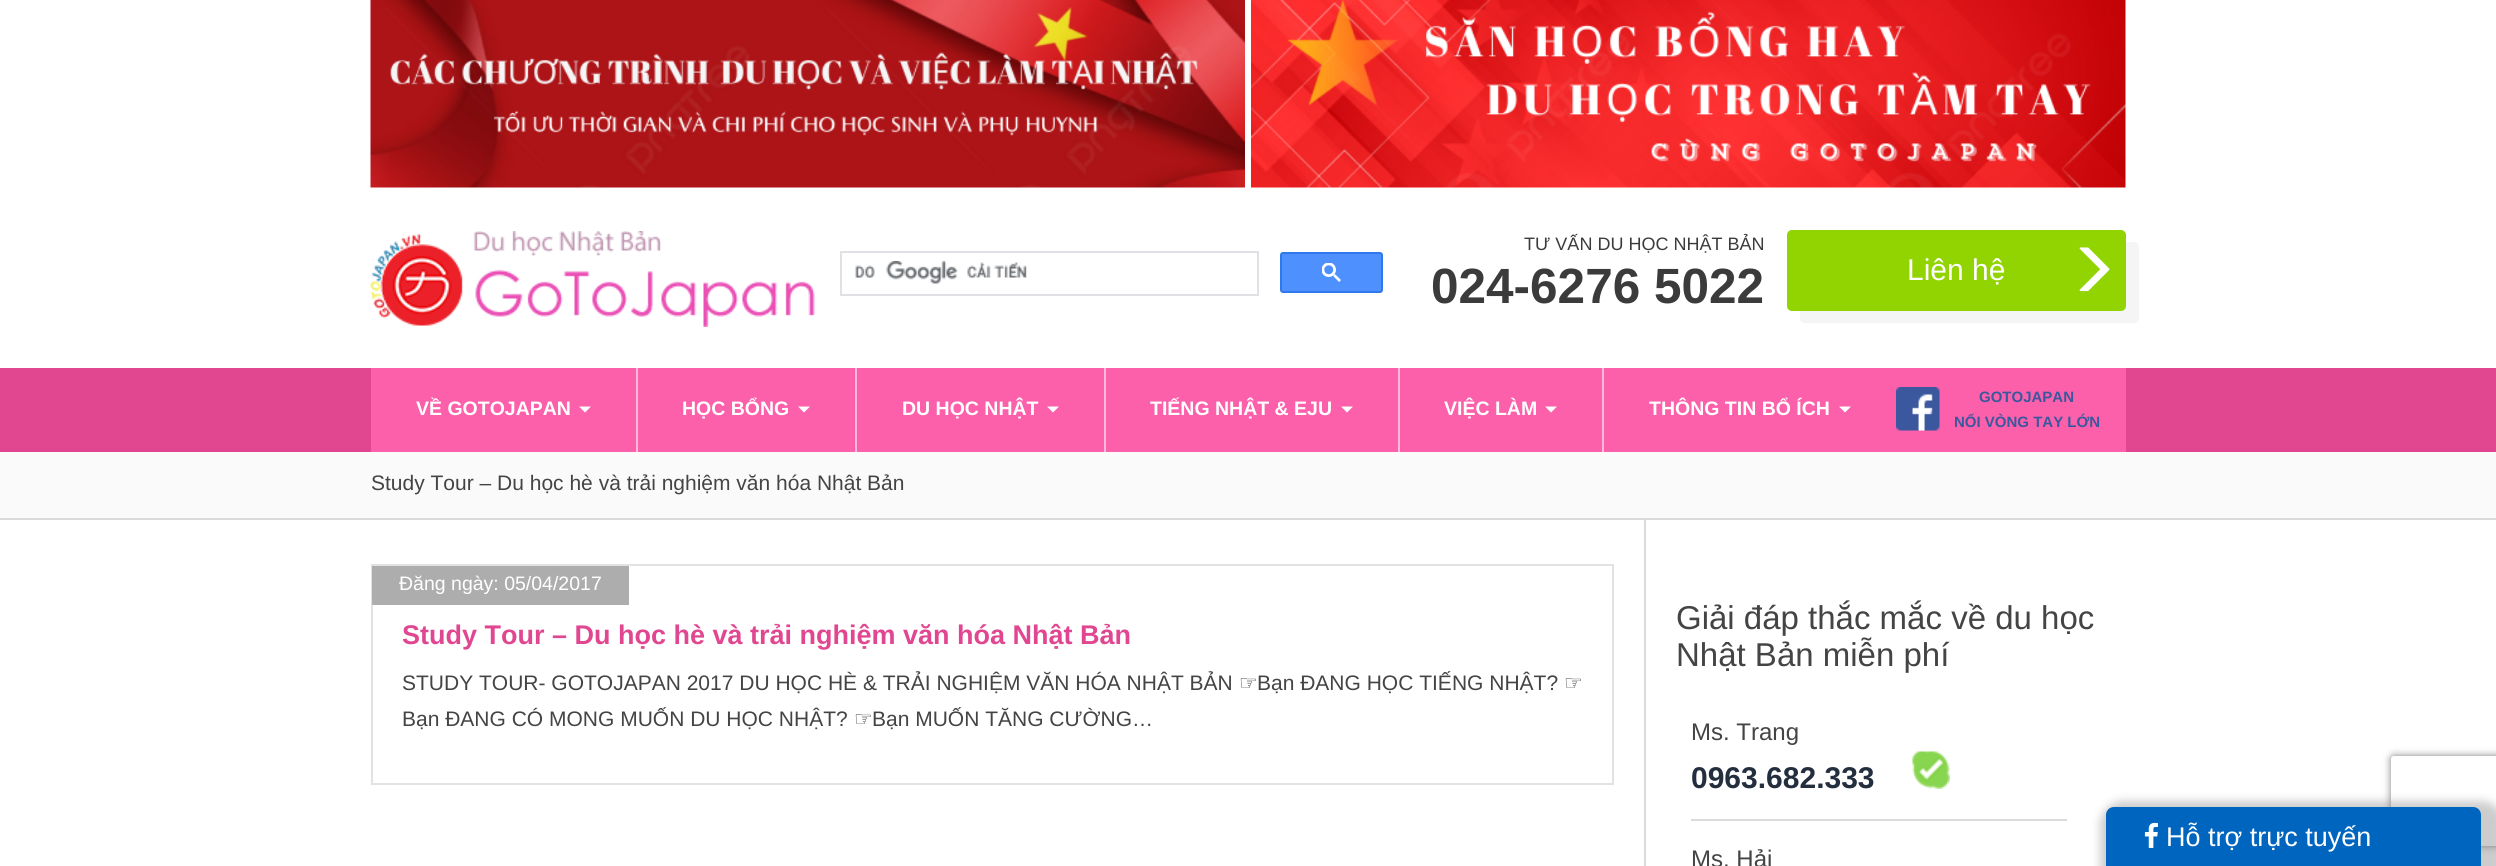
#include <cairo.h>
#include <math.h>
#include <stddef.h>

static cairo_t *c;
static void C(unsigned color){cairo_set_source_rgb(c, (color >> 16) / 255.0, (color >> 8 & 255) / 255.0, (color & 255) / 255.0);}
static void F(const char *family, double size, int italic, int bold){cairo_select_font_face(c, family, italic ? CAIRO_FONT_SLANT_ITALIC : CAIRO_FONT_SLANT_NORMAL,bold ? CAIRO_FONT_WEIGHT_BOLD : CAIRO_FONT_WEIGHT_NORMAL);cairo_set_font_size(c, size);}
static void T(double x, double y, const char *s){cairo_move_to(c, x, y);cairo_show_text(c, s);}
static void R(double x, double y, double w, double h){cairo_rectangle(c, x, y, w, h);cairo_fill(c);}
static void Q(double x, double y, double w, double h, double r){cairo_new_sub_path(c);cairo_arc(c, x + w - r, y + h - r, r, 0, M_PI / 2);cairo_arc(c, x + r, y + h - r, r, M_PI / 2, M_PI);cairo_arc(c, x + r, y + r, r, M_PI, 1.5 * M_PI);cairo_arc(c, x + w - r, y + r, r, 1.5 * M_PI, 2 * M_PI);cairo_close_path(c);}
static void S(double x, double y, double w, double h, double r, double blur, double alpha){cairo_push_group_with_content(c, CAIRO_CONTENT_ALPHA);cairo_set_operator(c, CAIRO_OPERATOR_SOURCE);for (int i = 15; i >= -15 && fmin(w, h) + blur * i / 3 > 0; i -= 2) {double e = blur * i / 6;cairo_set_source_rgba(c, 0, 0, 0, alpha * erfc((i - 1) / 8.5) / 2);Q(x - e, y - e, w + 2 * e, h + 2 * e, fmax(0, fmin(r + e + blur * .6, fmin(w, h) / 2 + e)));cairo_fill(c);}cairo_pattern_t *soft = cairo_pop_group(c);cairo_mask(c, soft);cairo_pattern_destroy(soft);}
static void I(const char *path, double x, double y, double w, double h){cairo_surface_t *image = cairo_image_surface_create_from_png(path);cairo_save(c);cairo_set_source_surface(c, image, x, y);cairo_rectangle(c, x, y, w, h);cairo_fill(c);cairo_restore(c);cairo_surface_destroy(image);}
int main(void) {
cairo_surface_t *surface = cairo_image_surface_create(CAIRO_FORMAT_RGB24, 2496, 866);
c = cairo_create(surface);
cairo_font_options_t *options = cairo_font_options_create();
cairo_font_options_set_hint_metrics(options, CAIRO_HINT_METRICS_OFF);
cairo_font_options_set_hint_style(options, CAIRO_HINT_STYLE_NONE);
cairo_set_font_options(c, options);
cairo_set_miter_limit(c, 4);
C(0xffffff);
cairo_paint(c);
I("1.png",370,0,875,188);
I("2.png",1251,0,875,188);
I("3.png",370,231,445,96);
cairo_rectangle(c,841,252,417,43);
C(0xdfe1e5);
cairo_stroke(c);
I("4.png",855,261,172,23);
C(0x4d90fe);
Q(1281,253,101,39,2);
cairo_fill_preserve(c);
C(0x3079ed);
cairo_stroke(c);
I("5.png",1322,263,19,19);
F("Liberation Sans",18,0,0);
C(0x3b3b3b);
T(1524,250,"TƯ VẤN DU HỌC NHẬT BẢN");
F("Liberation Sans",49.5,0,1);
T(1431,303,"024-6276 5022");
C(0xf5f5f5);
cairo_new_path(c);
cairo_move_to(c,1800,310);
cairo_line_to(c,1800,318);
cairo_curve_to(c,1800,321,1802,323,1805,323);
cairo_line_to(c,2134,323);
cairo_curve_to(c,2137,323,2139,321,2139,318);
cairo_line_to(c,2139,247);
cairo_curve_to(c,2139,244,2137,242,2134,242);
cairo_line_to(c,2126,242);
cairo_line_to(c,2126,306);
cairo_curve_to(c,2126,308,2123,310,2121,310);
cairo_close_path(c);
cairo_fill(c);
C(0x92d402);
Q(1787,230,339,81,5);
cairo_fill(c);
F("Liberation Sans",30,0,0);
C(0xffffff);
T(1907,280,"Liên hệ");
I("6.png",2079,247,31,45);
C(0xe14791);
R(0,368,2496,84);
C(0xfc60ab);
R(371,368,1755,84);
F("Liberation Sans",19.5,0,1);
C(0xffffff);
T(416,415,"VỀ GOTOJAPAN");
cairo_new_path(c);
cairo_move_to(c,579,406.5);
cairo_line_to(c,591,406.5);
cairo_line_to(c,585,412.5);
cairo_close_path(c);
cairo_fill(c);
C(0xffbadb);
R(636,368,2,84);
C(0xffffff);
T(682,415,"HỌC BỔNG");
cairo_new_path(c);
cairo_move_to(c,798,406.5);
cairo_line_to(c,810,406.5);
cairo_line_to(c,804,412.5);
cairo_close_path(c);
cairo_fill(c);
C(0xffbadb);
R(855,368,2,84);
C(0xffffff);
T(902,415,"DU HỌC NHẬT");
cairo_new_path(c);
cairo_move_to(c,1047,406.5);
cairo_line_to(c,1059,406.5);
cairo_line_to(c,1053,412.5);
cairo_close_path(c);
cairo_fill(c);
C(0xffbadb);
R(1104,368,2,84);
C(0xffffff);
T(1150,415,"TIẾNG NHẬT & EJU");
cairo_new_path(c);
cairo_move_to(c,1341,406.5);
cairo_line_to(c,1353,406.5);
cairo_line_to(c,1347,412.5);
cairo_close_path(c);
cairo_fill(c);
C(0xffbadb);
R(1398,368,2,84);
C(0xffffff);
T(1444,415,"VIỆC LÀM");
cairo_new_path(c);
cairo_move_to(c,1545,406.5);
cairo_line_to(c,1557,406.5);
cairo_line_to(c,1551,412.5);
cairo_close_path(c);
cairo_fill(c);
C(0xffbadb);
R(1602,368,2,84);
C(0xffffff);
T(1649,415,"THÔNG TIN BỔ ÍCH");
cairo_new_path(c);
cairo_move_to(c,1839,406.5);
cairo_line_to(c,1851,406.5);
cairo_line_to(c,1845,412.5);
cairo_close_path(c);
cairo_fill(c);
I("7.png",1896,387,44,44);
F("Liberation Sans",15,0,1);
C(0x3b579d);
T(1979,402,"GOTOJAPAN");
T(1954,427,"NỐI VÒNG TAY LỚN");
C(0xfafafa);
R(0,452,2496,66);
C(0xdbdbdb);
R(0,518,2496,2);
F("Liberation Sans",21,0,0);
C(0x444444);
T(371,490,"Study Tour – Du học hè và trải nghiệm văn hóa Nhật Bản");
C(0xdbdbdb);
R(1644,519,2,347);
cairo_rectangle(c,372,565,1241,219);
C(0xe2e2e2);
cairo_stroke(c);
C(0xadadad);
R(372,566,257,39);
F("Liberation Sans",19.5,0,0);
C(0xffffff);
T(399,590,"Đăng ngày: 05/04/2017");
F("Liberation Sans",27,0,1);
C(0xe14791);
T(402,644,"Study Tour – Du học hè và trải nghiệm văn hóa Nhật Bản");
F("Liberation Sans",21,0,0);
C(0x444444);
T(402,690,"STUDY TOUR- GOTOJAPAN 2017 DU HỌC HÈ & TRẢI NGHIỆM VĂN HÓA NHẬT BẢN");
F("DejaVu Sans",21,0,0);
T(1239,690,"☞");
F("Liberation Sans",21,0,0);
T(1257,690,"Bạn ĐANG HỌC TIẾNG NHẬT?");
F("DejaVu Sans",21,0,0);
T(1564,690,"☞");
F("Liberation Sans",21,0,0);
T(402,726,"Bạn ĐANG CÓ MONG MUỐN DU HỌC NHẬT?");
F("DejaVu Sans",21,0,0);
T(854,726,"☞");
F("Liberation Sans",21,0,0);
T(872,726,"Bạn MUỐN TĂNG CƯỜNG…");
F("Liberation Sans",33,0,0);
T(1676,629,"Giải đáp thắc mắc về du học");
T(1676,666,"Nhật Bản miễn phí");
F("Liberation Sans",24,0,0);
T(1691,740,"Ms. Trang");
F("Liberation Sans",30,0,1);
C(0x232f3e);
T(1691,788,"0963.682.333");
I("8.png",1912,751,38,38);
C(0xdbdbdb);
R(1691,819,376,2);
F("Liberation Sans",24,0,0);
C(0x444444);
T(1691,867,"Ms. Hải");
C(0x000000);
S(2100,801,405,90,23,4.5,.2);
cairo_save(c);
cairo_set_fill_rule(c,CAIRO_FILL_RULE_EVEN_ODD);
cairo_new_path(c);
cairo_move_to(c,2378,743);
cairo_line_to(c,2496,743);
cairo_line_to(c,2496,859);
cairo_line_to(c,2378,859);
cairo_close_path(c);
cairo_move_to(c,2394,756);
cairo_line_to(c,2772,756);
cairo_curve_to(c,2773.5,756,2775,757.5,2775,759);
cairo_line_to(c,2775,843);
cairo_curve_to(c,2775,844.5,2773.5,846,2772,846);
cairo_line_to(c,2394,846);
cairo_curve_to(c,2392.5,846,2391,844.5,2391,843);
cairo_line_to(c,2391,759);
cairo_curve_to(c,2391,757.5,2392.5,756,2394,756);
cairo_close_path(c);
cairo_clip(c);
C(0x808080);
S(2391,756,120,90,3,4,1);
cairo_restore(c);
C(0x0065bf);
cairo_new_path(c);
cairo_move_to(c,2114,807);
cairo_line_to(c,2473,807);
cairo_curve_to(c,2477.5,807,2481,810.5,2481,815);
cairo_line_to(c,2481,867);
cairo_line_to(c,2106,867);
cairo_line_to(c,2106,815);
cairo_curve_to(c,2106,810.5,2109.5,807,2114,807);
cairo_close_path(c);
cairo_fill(c);
I("9.png",2144,822,14,26);
F("Liberation Sans",27,0,0);
C(0xffffff);
T(2166,846,"Hỗ trợ trực tuyến");
cairo_surface_write_to_png(surface, "o.png");
cairo_font_options_destroy(options);
cairo_destroy(c);
cairo_surface_destroy(surface);
return 0;
}
